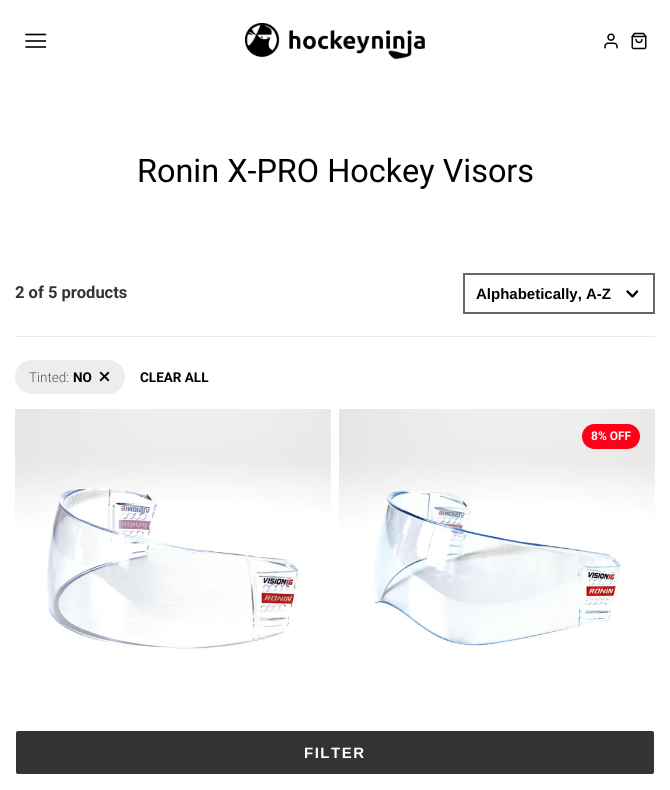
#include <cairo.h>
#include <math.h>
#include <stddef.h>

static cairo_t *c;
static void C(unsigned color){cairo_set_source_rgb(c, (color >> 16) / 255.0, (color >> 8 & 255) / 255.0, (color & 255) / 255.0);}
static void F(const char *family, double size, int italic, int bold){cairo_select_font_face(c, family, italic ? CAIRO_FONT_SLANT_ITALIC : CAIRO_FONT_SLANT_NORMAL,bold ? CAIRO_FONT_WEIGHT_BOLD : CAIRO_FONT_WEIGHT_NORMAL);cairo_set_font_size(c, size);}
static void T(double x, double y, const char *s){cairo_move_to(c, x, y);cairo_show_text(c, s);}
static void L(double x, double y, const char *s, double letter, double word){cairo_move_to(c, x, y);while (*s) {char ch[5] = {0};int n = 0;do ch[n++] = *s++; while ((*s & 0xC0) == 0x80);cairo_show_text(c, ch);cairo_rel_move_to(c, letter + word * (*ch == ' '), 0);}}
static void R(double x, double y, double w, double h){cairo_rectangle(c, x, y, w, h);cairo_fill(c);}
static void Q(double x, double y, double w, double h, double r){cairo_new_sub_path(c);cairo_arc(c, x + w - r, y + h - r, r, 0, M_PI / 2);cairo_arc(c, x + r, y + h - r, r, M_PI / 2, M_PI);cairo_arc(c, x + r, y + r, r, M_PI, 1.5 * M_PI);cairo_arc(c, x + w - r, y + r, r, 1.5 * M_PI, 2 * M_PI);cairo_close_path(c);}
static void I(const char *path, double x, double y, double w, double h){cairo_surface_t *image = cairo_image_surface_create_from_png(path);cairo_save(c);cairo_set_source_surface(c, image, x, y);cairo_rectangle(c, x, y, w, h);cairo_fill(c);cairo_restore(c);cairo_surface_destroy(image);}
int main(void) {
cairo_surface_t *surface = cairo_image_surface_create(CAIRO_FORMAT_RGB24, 670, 790);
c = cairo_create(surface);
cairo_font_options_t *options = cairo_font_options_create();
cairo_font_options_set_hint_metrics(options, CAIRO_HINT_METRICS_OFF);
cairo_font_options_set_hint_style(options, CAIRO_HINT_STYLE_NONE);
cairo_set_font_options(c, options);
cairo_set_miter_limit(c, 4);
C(0xffffff);
cairo_paint(c);
cairo_new_path(c);
cairo_move_to(c,26,41);
cairo_line_to(c,45.5,41);
cairo_move_to(c,26,34.5);
cairo_line_to(c,45.5,34.5);
cairo_move_to(c,26,47);
cairo_line_to(c,45.5,47);
C(0x000000);
cairo_set_line_width(c,1.6);
cairo_set_line_cap(c,CAIRO_LINE_CAP_ROUND);
cairo_set_line_join(c,CAIRO_LINE_JOIN_ROUND);
cairo_stroke(c);
I("1.png",245,23,180,36);
I("2.png",604,33,14,16);
I("3.png",631,32,16,18);
F("Roboto",32.4,0,0);
T(137,182,"Ronin X-PRO Hockey Visors");
C(0xeaeaea);
R(15,336,640,1);
F("Roboto",16.5,0,1);
C(0x333333);
T(15,298,"2 of 5 products");
cairo_rectangle(c,464,274,190,39);
C(0x666666);
cairo_set_line_width(c,2);
cairo_set_line_cap(c,CAIRO_LINE_CAP_BUTT);
cairo_set_line_join(c,CAIRO_LINE_JOIN_MITER);
cairo_stroke(c);
cairo_save(c);
cairo_rectangle(c,476,285,136,17);
cairo_clip(c);
F("Liberation Sans",15,0,1);
C(0x000000);
T(476,299,"Alphabetically, A-Z");
cairo_restore(c);
cairo_new_path(c);
cairo_move_to(c,627.5,291.5);
cairo_line_to(c,632.5,296.5);
cairo_line_to(c,637,291.5);
C(0x000000);
cairo_set_line_width(c,2.3);
cairo_set_line_cap(c,CAIRO_LINE_CAP_ROUND);
cairo_set_line_join(c,CAIRO_LINE_JOIN_ROUND);
cairo_stroke(c);
C(0xededed);
Q(15,360,110,34,17);
cairo_fill(c);
F("Roboto Light",13.5,0,0);
C(0x555555);
T(29,382,"Tinted:");
F("Roboto",13.5,0,1);
C(0x000000);
T(73,382,"NO");
I("4.png",99,371,11,11);
T(140,382,"CLEAR ALL");
I("5.png",15,409,316,243);
I("6.png",339,409,316,237);
C(0xff0018);
Q(582,424,58,25,12.5);
cairo_fill(c);
F("Roboto",12,0,1);
C(0xffffff);
T(591,440,"8% OFF");
C(0x333333);
Q(16,731,638,43,2);
cairo_fill(c);
F("Liberation Sans",15,0,1);
C(0xffffff);
L(304,758,"FILTER",1.5,0);
cairo_surface_write_to_png(surface, "o.png");
cairo_font_options_destroy(options);
cairo_destroy(c);
cairo_surface_destroy(surface);
return 0;
}
